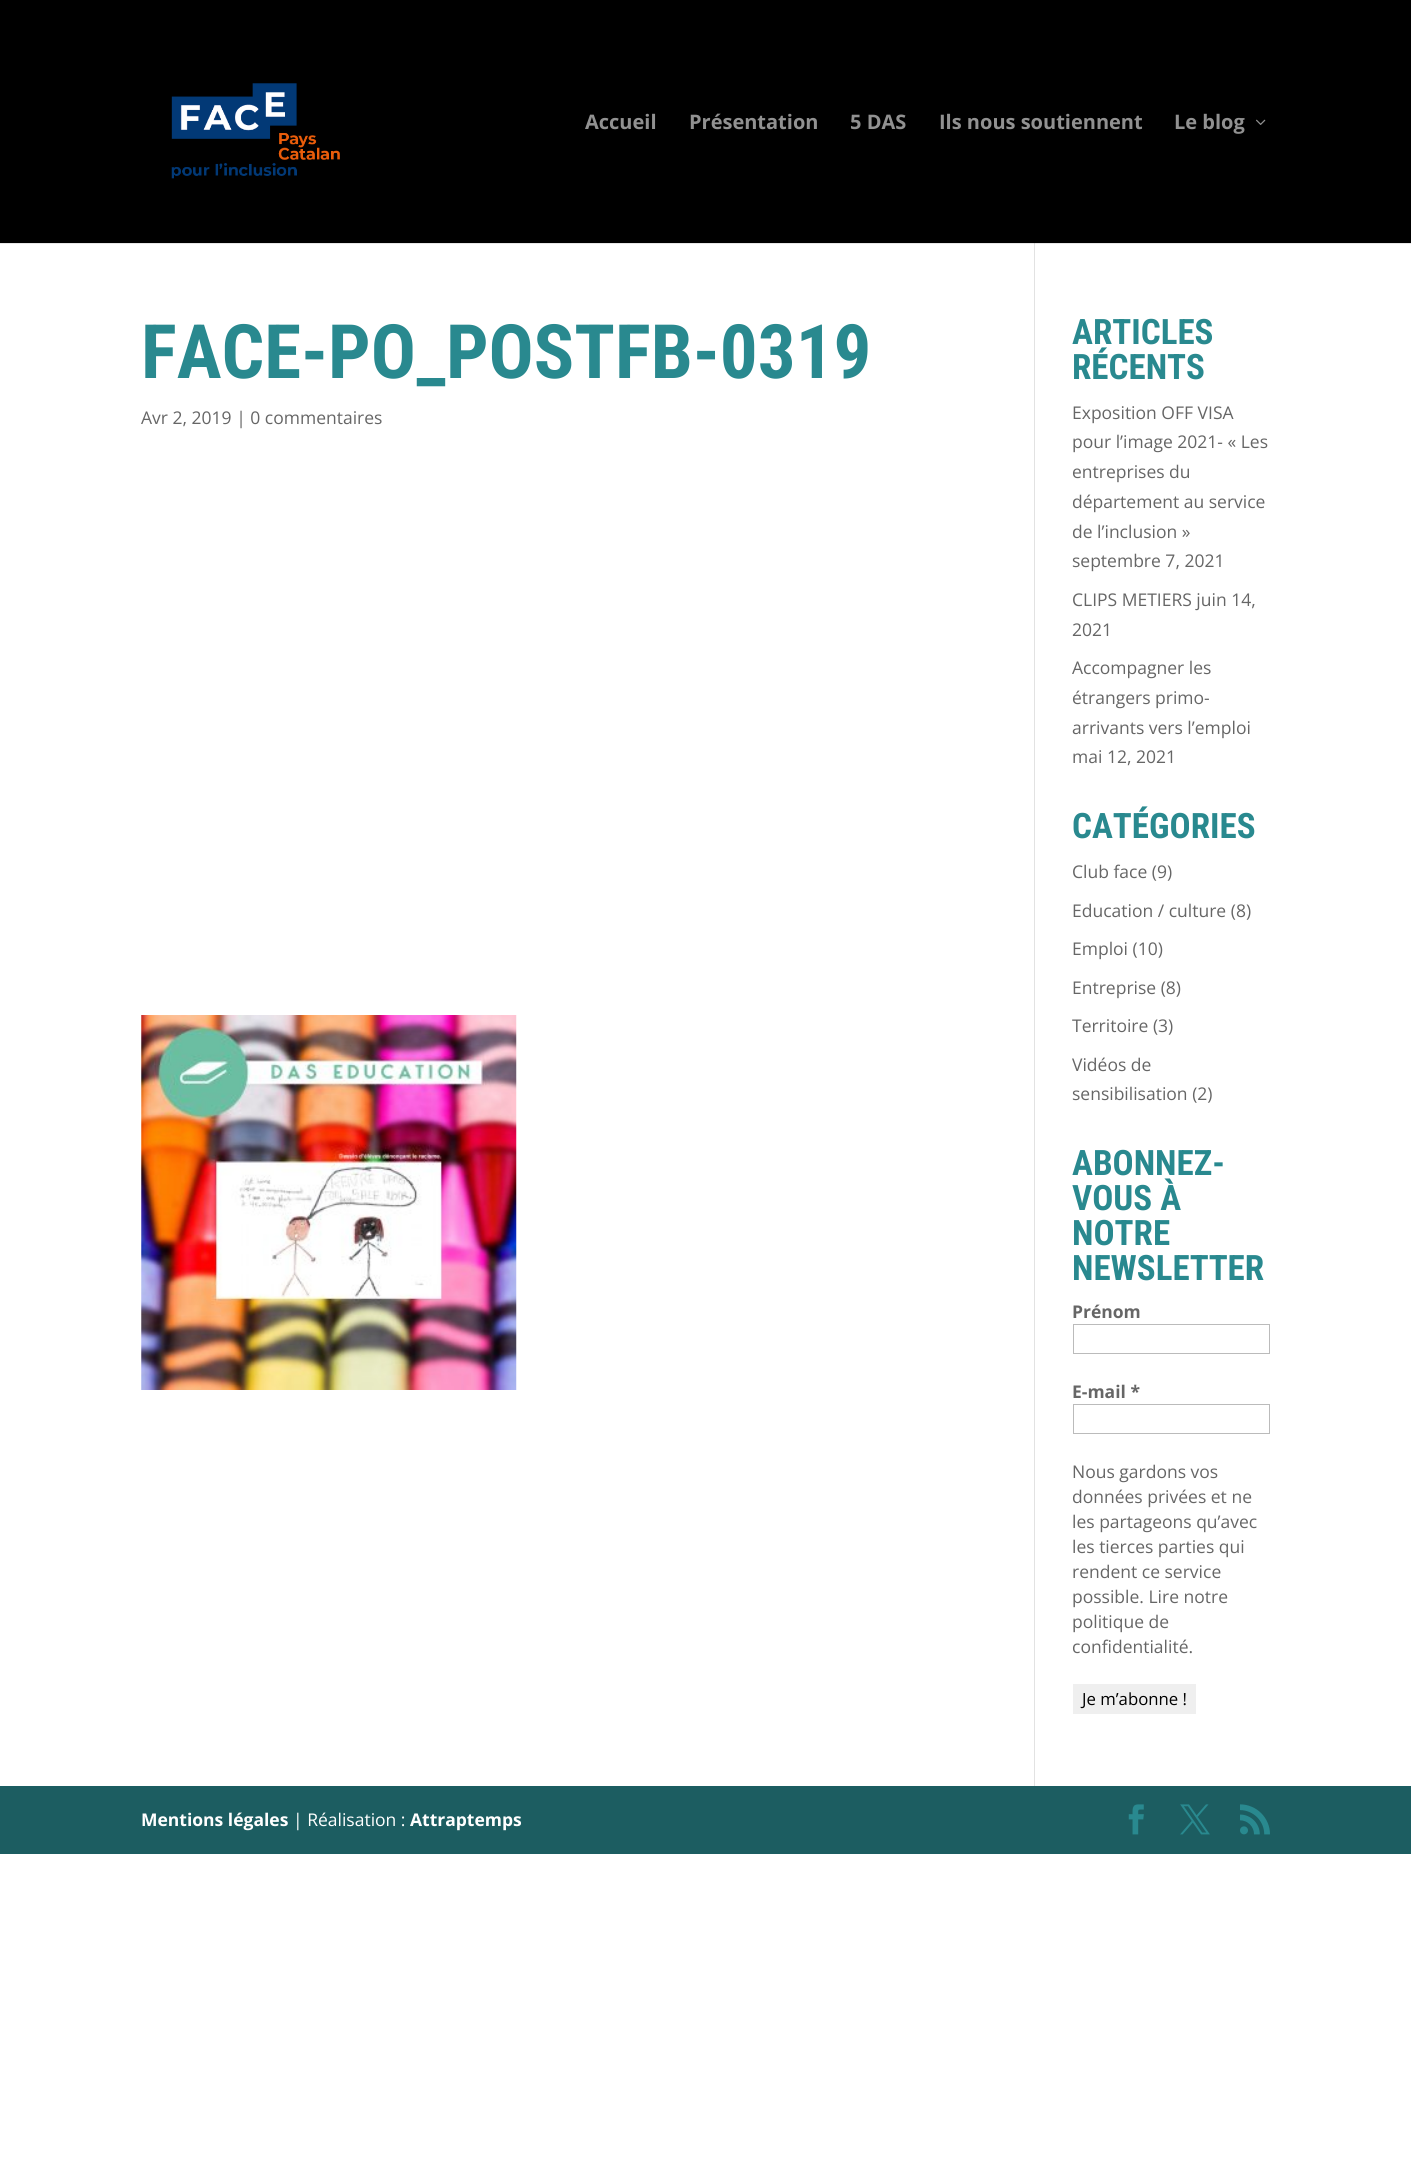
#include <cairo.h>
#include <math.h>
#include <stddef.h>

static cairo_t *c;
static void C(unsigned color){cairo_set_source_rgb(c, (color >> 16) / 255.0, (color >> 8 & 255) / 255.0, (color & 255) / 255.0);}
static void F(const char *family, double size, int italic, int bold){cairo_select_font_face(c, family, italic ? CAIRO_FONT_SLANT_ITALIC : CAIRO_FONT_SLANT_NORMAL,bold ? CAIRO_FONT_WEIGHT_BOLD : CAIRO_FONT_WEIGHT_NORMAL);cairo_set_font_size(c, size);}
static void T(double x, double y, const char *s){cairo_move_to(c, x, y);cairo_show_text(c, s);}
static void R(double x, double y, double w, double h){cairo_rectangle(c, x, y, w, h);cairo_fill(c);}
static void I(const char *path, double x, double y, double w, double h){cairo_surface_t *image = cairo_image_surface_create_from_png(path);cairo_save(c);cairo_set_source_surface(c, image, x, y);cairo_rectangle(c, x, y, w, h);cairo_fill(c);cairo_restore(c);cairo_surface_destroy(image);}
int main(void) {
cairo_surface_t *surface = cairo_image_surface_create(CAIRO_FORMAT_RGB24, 1411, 2162);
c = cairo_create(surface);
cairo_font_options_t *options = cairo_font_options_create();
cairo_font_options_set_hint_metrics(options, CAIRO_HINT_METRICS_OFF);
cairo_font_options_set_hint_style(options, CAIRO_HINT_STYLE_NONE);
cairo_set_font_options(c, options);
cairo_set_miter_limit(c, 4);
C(0xffffff);
cairo_paint(c);
C(0xe6e6e6);
R(0,243,1411,1);
C(0x000000);
R(0,0,1411,243);
I("1.png",171,83,169,96);
F("Open Sans",20,0,1);
C(0x919191);
T(585,129,"Accueil");
T(689,129,"Présentation");
T(850,129,"5 DAS");
T(939,129,"Ils nous soutiennent");
T(1174,129,"Le blog");
I("2.png",1256,119,10,6);
C(0xe2e2e2);
R(1034,243,1,1543);
C(0xcbcbcb);
R(1034,243,1,1);
F("Roboto Condensed",75,0,1);
C(0x29898f);
T(141,378,"FACE-PO_POSTFB-0319");
F("Open Sans",17.5,0,0);
C(0x666666);
T(141,424,"Avr 2, 2019 | 0 commentaires");
I("3.png",141,1015,376,375);
F("Roboto Condensed",35,0,1);
C(0x29898f);
T(1072,344,"ARTICLES");
T(1072,379,"RÉCENTS");
F("Open Sans",17.5,0,0);
C(0x666666);
T(1072,419,"Exposition OFF VISA");
T(1072,448,"pour l’image 2021- « Les");
T(1072,478,"entreprises du");
T(1072,508,"département au service");
T(1072,538,"de l’inclusion »");
T(1072,567,"septembre 7, 2021");
T(1072,606,"CLIPS METIERS juin 14,");
T(1072,636,"2021");
T(1072,674,"Accompagner les");
T(1072,704,"étrangers primo-");
T(1072,734,"arrivants vers l’emploi");
T(1072,763,"mai 12, 2021");
F("Roboto Condensed",35,0,1);
C(0x29898f);
T(1072,838,"CATÉGORIES");
F("Open Sans",17.5,0,0);
C(0x666666);
T(1072,878,"Club face (9)");
T(1072,917,"Education / culture (8)");
T(1072,955,"Emploi (10)");
T(1072,994,"Entreprise (8)");
T(1072,1032,"Territoire (3)");
T(1072,1071,"Vidéos de");
T(1072,1100,"sensibilisation (2)");
F("Roboto Condensed",35,0,1);
C(0x29898f);
T(1072,1175,"ABONNEZ-");
T(1072,1210,"VOUS À");
T(1072,1245,"NOTRE");
T(1072,1280,"NEWSLETTER");
F("Open Sans",17.5,0,1);
C(0x666666);
T(1072,1318,"Prénom");
cairo_rectangle(c,1073.5,1324.5,196,29);
C(0xbbbbbb);
cairo_set_line_width(c,1);
cairo_stroke(c);
C(0x666666);
T(1072,1398,"E-mail *");
cairo_rectangle(c,1073.5,1404.5,196,29);
C(0xbbbbbb);
cairo_stroke(c);
F("Open Sans",17.5,0,0);
C(0x666666);
T(1072,1478,"Nous gardons vos");
T(1072,1503,"données privées et ne");
T(1072,1528,"les partageons qu’avec");
T(1072,1553,"les tierces parties qui");
T(1072,1578,"rendent ce service");
T(1072,1603,"possible. Lire notre");
T(1072,1628,"politique de");
T(1072,1653,"confidentialité.");
C(0xefefef);
R(1073,1684,123,30);
F("Open Sans",16.75,0,0);
C(0x000000);
T(1082,1705,"Je m’abonne !");
C(0x1c5d61);
R(0,1786,1411,68);
F("Open Sans",17.5,0,1);
C(0xffffff);
T(141,1826,"Mentions légales");
F("Open Sans",17.5,0,0);
T(293,1826,"| Réalisation :");
F("Open Sans",17.5,0,1);
T(410,1826,"Attraptemps");
I("4.png",1128,1804,16,31);
I("5.png",1180,1804,30,31);
I("6.png",1240,1804,30,31);
cairo_surface_write_to_png(surface, "o.png");
cairo_font_options_destroy(options);
cairo_destroy(c);
cairo_surface_destroy(surface);
return 0;
}
